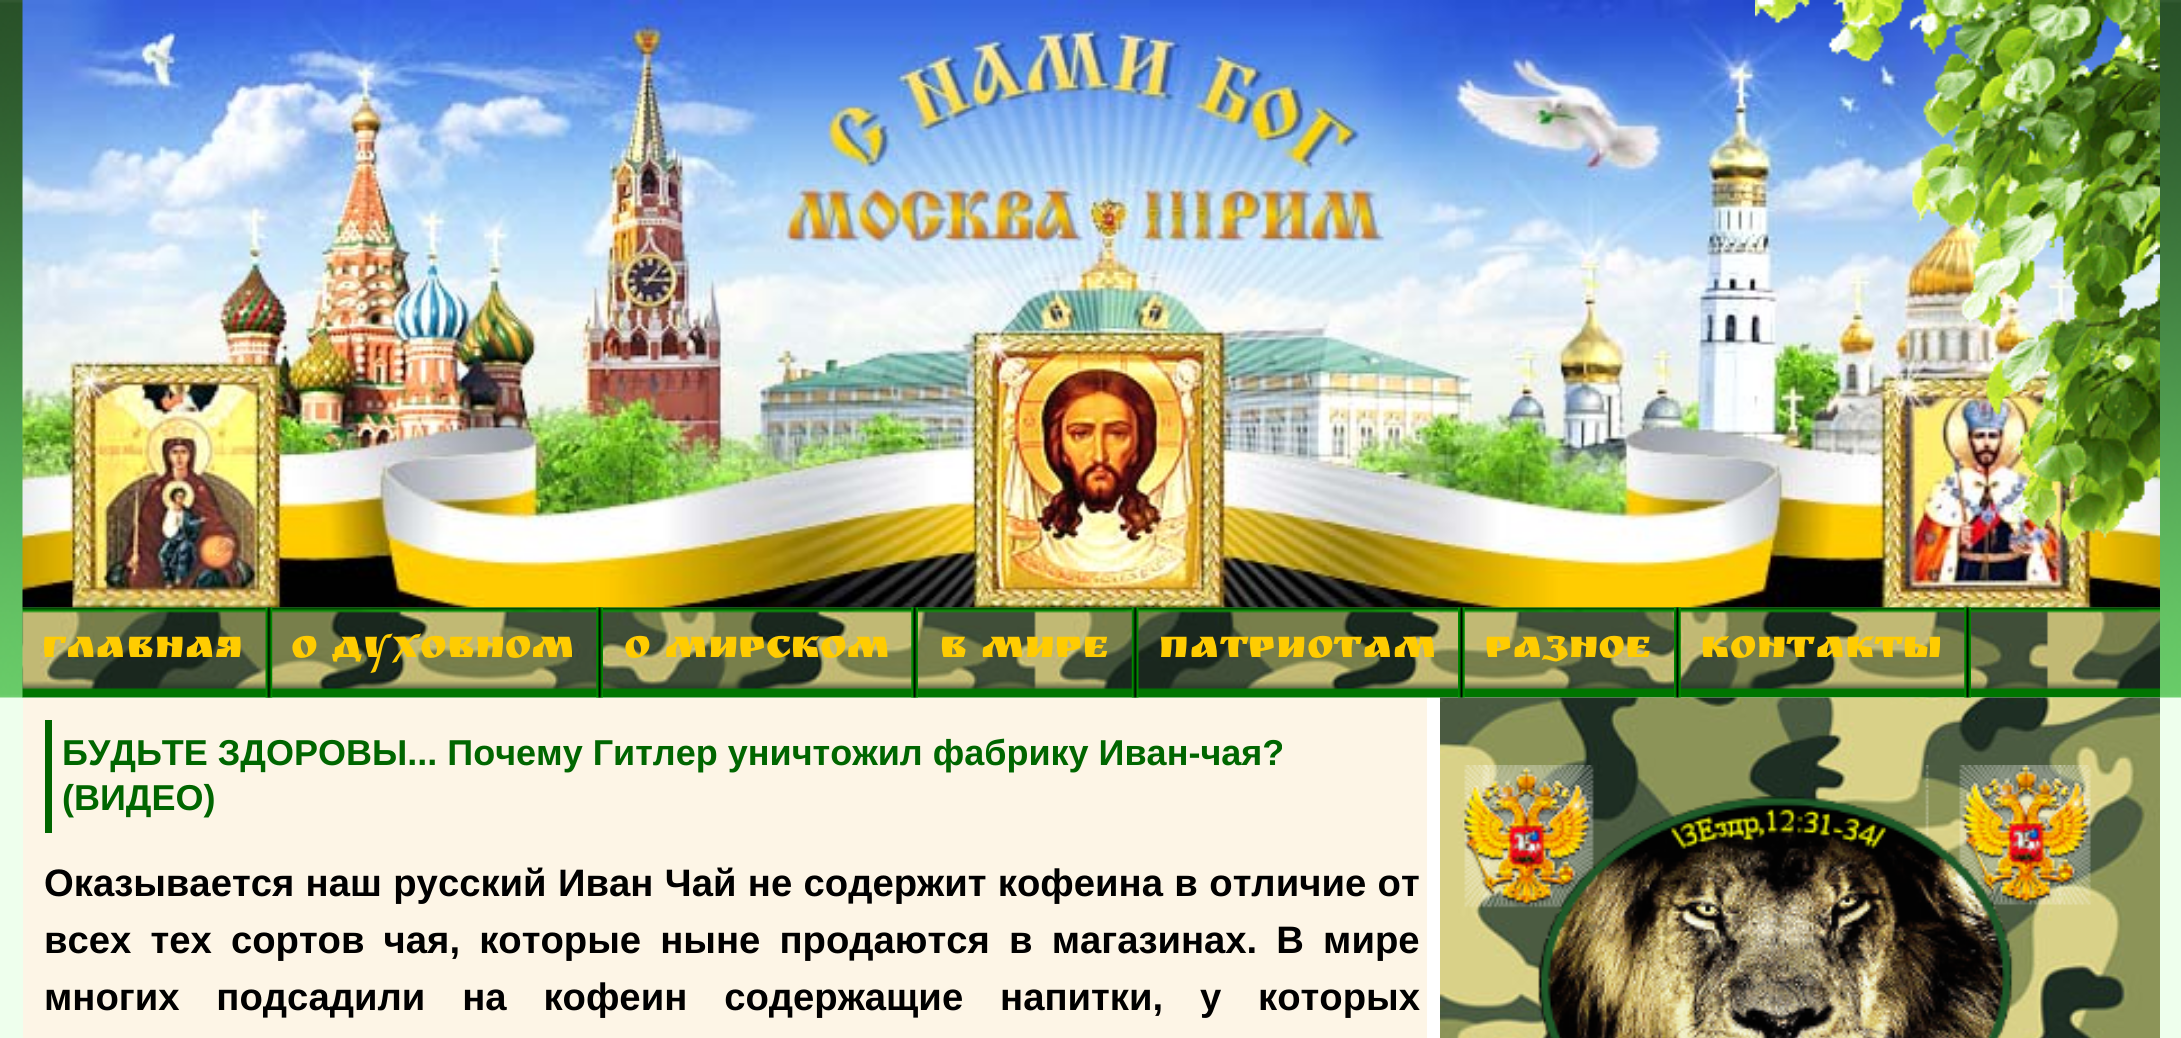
#include <cairo.h>
#include <math.h>
#include <stddef.h>

static cairo_t *c;
static void C(unsigned color){cairo_set_source_rgb(c, (color >> 16) / 255.0, (color >> 8 & 255) / 255.0, (color & 255) / 255.0);}
static void F(const char *family, double size, int italic, int bold){cairo_select_font_face(c, family, italic ? CAIRO_FONT_SLANT_ITALIC : CAIRO_FONT_SLANT_NORMAL,bold ? CAIRO_FONT_WEIGHT_BOLD : CAIRO_FONT_WEIGHT_NORMAL);cairo_set_font_size(c, size);}
static void T(double x, double y, const char *s){cairo_move_to(c, x, y);cairo_show_text(c, s);}
static void L(double x, double y, const char *s, double letter, double word){cairo_move_to(c, x, y);while (*s) {char ch[5] = {0};int n = 0;do ch[n++] = *s++; while ((*s & 0xC0) == 0x80);cairo_show_text(c, ch);cairo_rel_move_to(c, letter + word * (*ch == ' '), 0);}}
static void R(double x, double y, double w, double h){cairo_rectangle(c, x, y, w, h);cairo_fill(c);}
static void I(const char *path, double x, double y, double w, double h){cairo_surface_t *image = cairo_image_surface_create_from_png(path);cairo_save(c);cairo_set_source_surface(c, image, x, y);cairo_rectangle(c, x, y, w, h);cairo_fill(c);cairo_restore(c);cairo_surface_destroy(image);}
int main(void) {
cairo_surface_t *surface = cairo_image_surface_create(CAIRO_FORMAT_RGB24, 2181, 1038);
c = cairo_create(surface);
cairo_font_options_t *options = cairo_font_options_create();
cairo_font_options_set_hint_metrics(options, CAIRO_HINT_METRICS_OFF);
cairo_font_options_set_hint_style(options, CAIRO_HINT_STYLE_NONE);
cairo_set_font_options(c, options);
cairo_set_miter_limit(c, 4);
C(0xeeffed);
cairo_paint(c);
I("1.png",0,0,2181,698);
I("2.png",22,0,2138,608);
I("3.png",1755,0,405,545);
C(0xffffff);
R(23,697,2137,341);
I("4.png",22,607,2138,91);
I("5.png",265,607,8,91);
F("Ruslan Display",40.5,0,0);
C(0xffcc01);
T(42,657,"ГЛАВНАЯ");
I("6.png",596,607,7,91);
T(291,657,"О ДУХОВНОМ");
I("7.png",911,607,7,91);
T(624,657,"О МИРСКОМ");
I("8.png",1131,607,8,91);
T(939,657,"В МИРЕ");
I("12.png",1440,697,720,341);
I("9.png",1458,607,7,91);
T(1159,657,"ПАТРИОТАМ");
I("10.png",1674,607,7,91);
T(1485,657,"РАЗНОЕ");
I("11.png",1964,607,7,91);
T(1701,657,"КОНТАКТЫ");
C(0xfdf5e6);
R(23,698,1404,340);
C(0x006600);
R(45,720,7,113);
F("Liberation Sans",36,0,1);
T(62,765,"БУДЬТЕ ЗДОРОВЫ... Почему Гитлер уничтожил фабрику Иван-чая?");
T(62,810,"(ВИДЕО)");
F("Liberation Sans",38.25,0,1);
C(0x000000);
L(44,896,"Оказывается наш русский Иван Чай не содержит кофеина в отличие от",0,.75);
L(44,953,"всех тех сортов чая, которые ныне продаются в магазинах. В мире",0,8.5);
L(44,1010,"многих подсадили на кофеин содержащие напитки, у которых",0,26.25);
I("13.png",1464,765,627,273);
cairo_surface_write_to_png(surface, "o.png");
cairo_font_options_destroy(options);
cairo_destroy(c);
cairo_surface_destroy(surface);
return 0;
}
